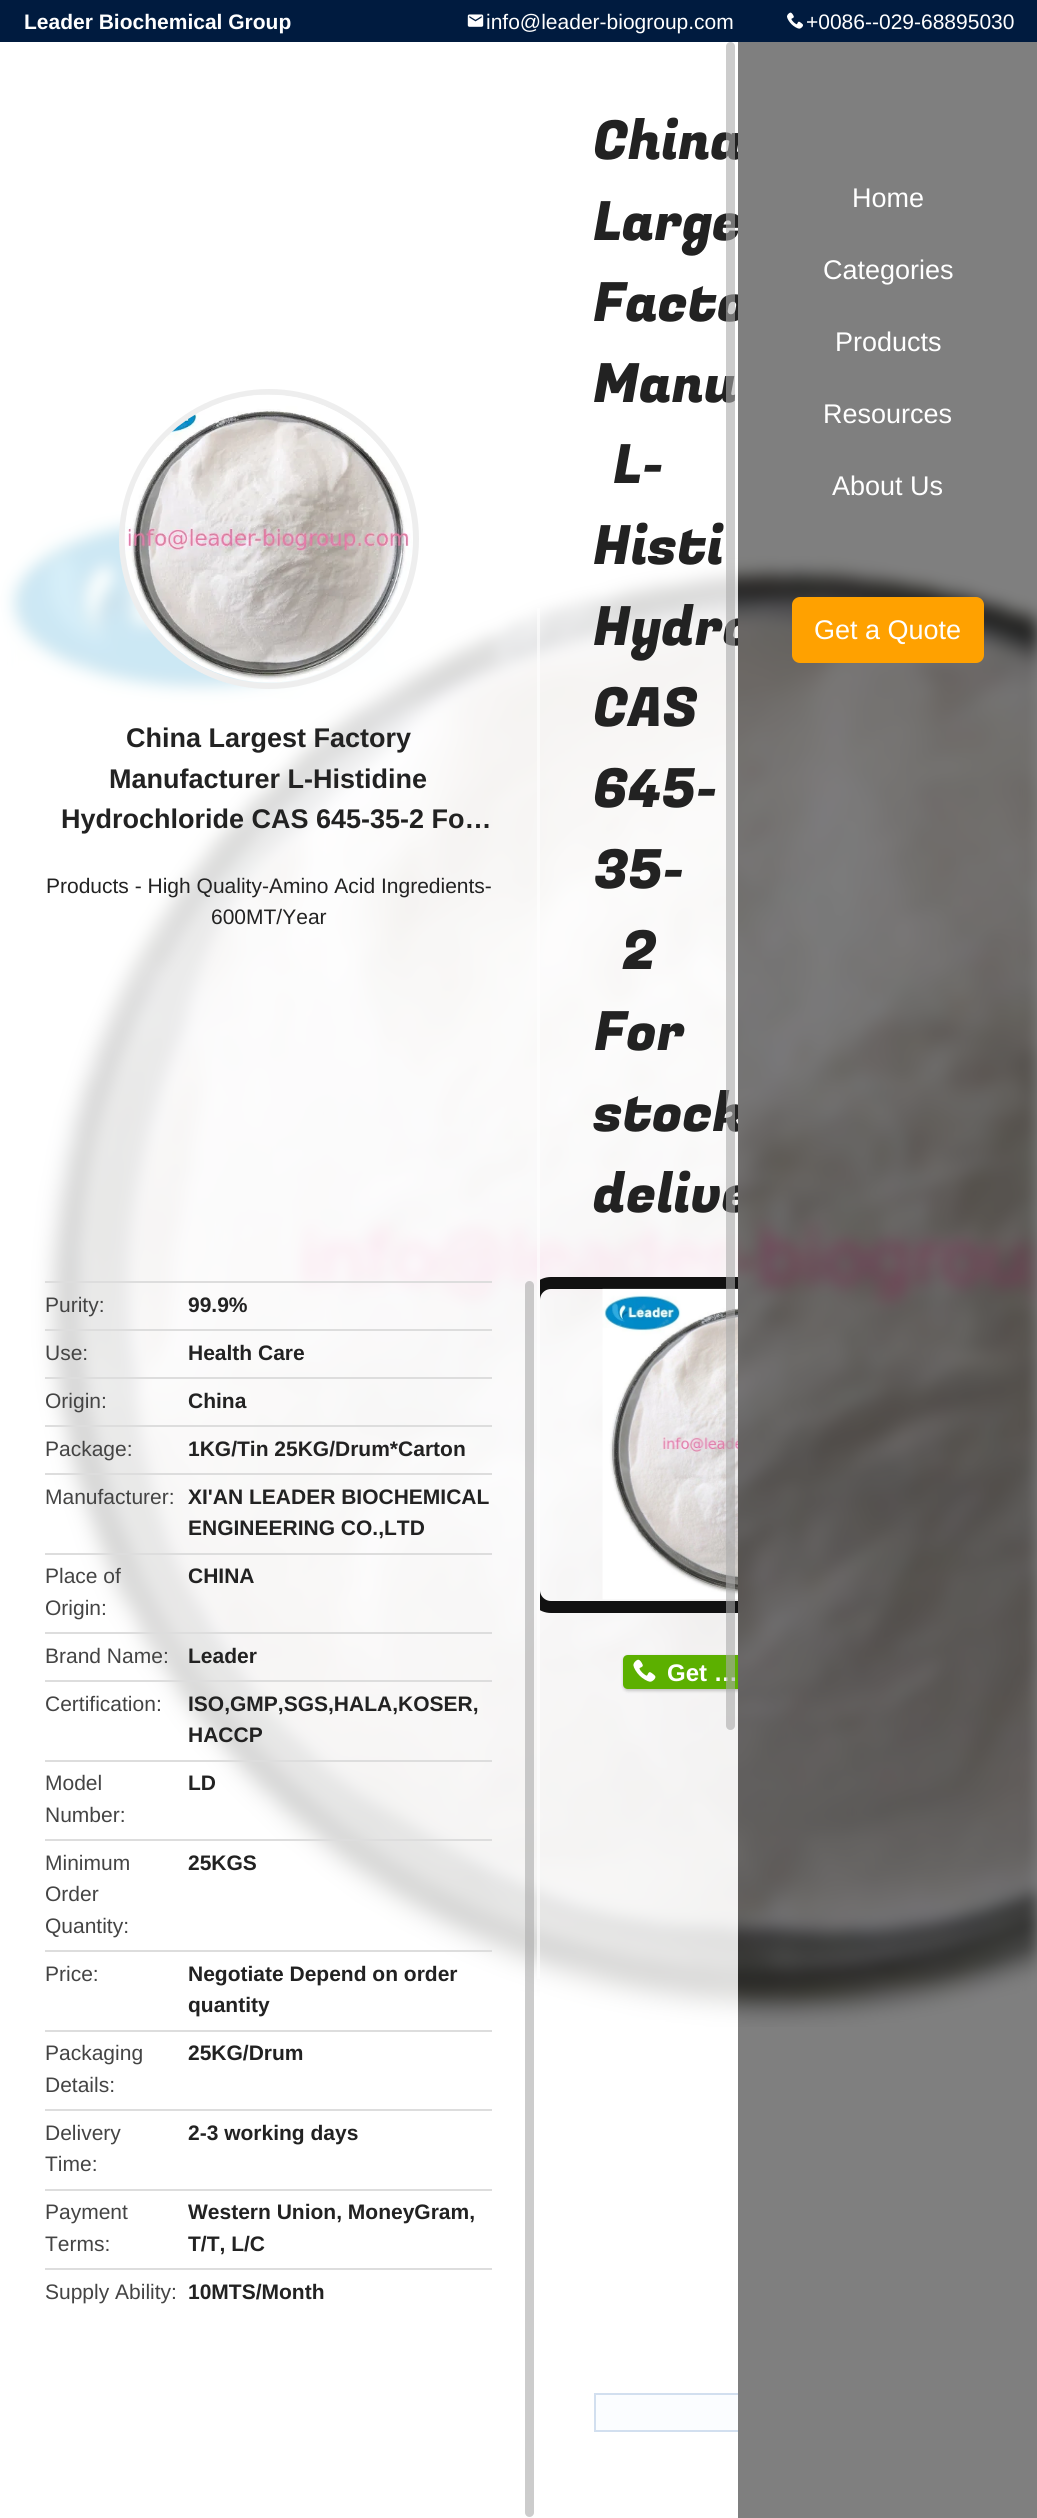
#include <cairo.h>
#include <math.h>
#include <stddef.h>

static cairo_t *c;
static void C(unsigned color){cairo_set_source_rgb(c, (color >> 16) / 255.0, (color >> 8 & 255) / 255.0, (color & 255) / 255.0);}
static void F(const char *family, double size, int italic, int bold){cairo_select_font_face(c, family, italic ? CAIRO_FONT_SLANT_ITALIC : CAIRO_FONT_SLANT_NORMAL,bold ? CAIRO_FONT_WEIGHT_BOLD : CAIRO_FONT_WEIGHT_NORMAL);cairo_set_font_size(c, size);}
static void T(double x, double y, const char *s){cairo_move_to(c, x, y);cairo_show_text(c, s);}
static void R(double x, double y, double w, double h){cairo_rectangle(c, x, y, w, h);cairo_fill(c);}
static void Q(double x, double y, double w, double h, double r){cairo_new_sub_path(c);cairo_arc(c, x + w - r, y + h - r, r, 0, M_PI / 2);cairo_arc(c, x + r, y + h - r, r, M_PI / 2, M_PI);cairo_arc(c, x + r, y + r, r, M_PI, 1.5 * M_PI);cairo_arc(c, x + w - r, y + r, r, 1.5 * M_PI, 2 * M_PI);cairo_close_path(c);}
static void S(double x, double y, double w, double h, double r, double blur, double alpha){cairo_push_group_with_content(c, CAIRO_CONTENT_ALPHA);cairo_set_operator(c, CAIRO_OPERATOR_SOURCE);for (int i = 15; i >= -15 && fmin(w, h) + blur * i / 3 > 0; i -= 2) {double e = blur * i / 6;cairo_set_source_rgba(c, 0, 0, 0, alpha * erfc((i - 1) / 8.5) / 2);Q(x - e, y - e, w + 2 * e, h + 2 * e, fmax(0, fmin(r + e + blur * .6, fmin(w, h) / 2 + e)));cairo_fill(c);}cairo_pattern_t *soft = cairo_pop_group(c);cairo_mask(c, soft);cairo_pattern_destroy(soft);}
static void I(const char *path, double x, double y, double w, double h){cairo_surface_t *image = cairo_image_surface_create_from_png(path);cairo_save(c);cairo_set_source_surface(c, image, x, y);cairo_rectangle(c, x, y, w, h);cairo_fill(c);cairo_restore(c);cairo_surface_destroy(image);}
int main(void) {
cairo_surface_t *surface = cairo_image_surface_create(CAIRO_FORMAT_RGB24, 1037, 2518);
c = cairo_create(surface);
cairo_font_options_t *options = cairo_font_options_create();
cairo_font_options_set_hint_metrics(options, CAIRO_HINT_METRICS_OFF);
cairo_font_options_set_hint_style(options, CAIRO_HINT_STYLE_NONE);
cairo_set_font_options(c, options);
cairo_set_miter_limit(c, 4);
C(0xffffff);
cairo_paint(c);
C(0x001b3f);
R(0,0,1037,42);
F("Liberation Sans",21,0,1);
C(0xffffff);
T(24,29,"Leader Biochemical Group");
I("1.png",467,14,17,13);
F("Liberation Sans",21,0,0);
T(486,29,"info@leader-biogroup.com");
I("2.png",787,12,16,17);
T(806,29,"+0086--029-68895030");
I("5.png",0,505,1037,1522);
cairo_set_source_rgba(c,1,1,1,0.8);
R(540,559,198,1468);
cairo_save(c);
cairo_rectangle(c,540,42,198,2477);
cairo_clip(c);
F("Fugaz One",54,0,0);
C(0x222222);
T(593,159,"China");
T(593,240,"Large");
T(593,321,"Facto");
cairo_restore(c);
F("Fugaz One",54,0,0);
C(0x222222);
T(593,402,"Manu");
cairo_save(c);
cairo_rectangle(c,540,42,198,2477);
cairo_clip(c);
T(593,645,"Hydro");
T(593,1131,"stock");
T(593,1212,"delive");
cairo_restore(c);
cairo_set_source_rgba(c,0,0,0,0.5);
R(738,42,299,2476);
cairo_set_source_rgba(c,1,1,1,0.8);
R(0,505,540,1485);
cairo_set_source_rgba(c,1,1,1,0.6);
R(537,608,3,1371);
cairo_set_source_rgba(c,0.667,0.667,0.667,0.6);
Q(525,1281,9,1236,4.5);
cairo_fill(c);
cairo_save(c);
cairo_rectangle(c,540,42,198,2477);
cairo_clip(c);
Q(534,1283,449,324,17);
C(0x111111);
cairo_set_line_width(c,12);
cairo_stroke(c);
cairo_restore(c);
I("3.png",602,1288,136,312);
cairo_save(c);
cairo_rectangle(c,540,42,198,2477);
cairo_clip(c);
C(0x000000);
S(623,1656,124,35,5,1.5,.2);
cairo_restore(c);
C(0x5cb000);
cairo_new_path(c);
cairo_move_to(c,628,1655);
cairo_line_to(c,738,1655);
cairo_line_to(c,738,1689);
cairo_line_to(c,628,1689);
cairo_curve_to(c,625,1689,623,1687,623,1684);
cairo_line_to(c,623,1660);
cairo_curve_to(c,623,1657,625,1655,628,1655);
cairo_close_path(c);
cairo_fill(c);
F("Liberation Sans",24,0,1);
C(0xffffff);
T(667,1681,"Get …");
cairo_set_source_rgba(c,0.667,0.667,0.667,0.6);
Q(726,42,9,1688,4.5);
cairo_fill(c);
F("Fugaz One",54,0,0);
C(0x222222);
T(613,483,"L-");
T(593,564,"Histi");
T(593,726,"CAS");
T(593,807,"645-");
T(594,888,"35-");
T(622,969,"2");
T(594,1050,"For");
I("4.png",633,1659,23,23);
C(0xfbfdff);
R(596,2395,142,35);
cairo_save(c);
cairo_rectangle(c,594,2393,144,54);
cairo_clip(c);
cairo_rectangle(c,595,2394,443,37);
C(0xd2dfef);
cairo_stroke(c);
cairo_restore(c);
F("Liberation Sans",27,0,0);
C(0xffffff);
T(852,207,"Home");
T(823,279,"Categories");
T(835,351,"Products");
T(823,423,"Resources");
T(832,495,"About Us");
C(0xffa100);
Q(792,597,192,66,8);
cairo_fill(c);
C(0xffffff);
T(814,639,"Get a Quote");
cairo_new_path(c);
cairo_arc(c,269,539,147,0,2 * M_PI);
C(0xeeeeee);
cairo_set_line_width(c,6);
cairo_stroke(c);
I("6.png",124,394,288,289);
F("Liberation Sans",27,0,1);
C(0x222222);
T(126,747,"China Largest Factory");
T(109,788,"Manufacturer L-Histidine");
T(61,828,"Hydrochloride CAS 645-35-2 Fo…");
F("Liberation Sans",21,0,0);
T(46,893,"Products - High Quality-Amino Acid Ingredients-");
T(211,924,"600MT/Year");
C(0xdddddd);
R(45,1281,447,2);
C(0x444444);
T(45,1312,"Purity:");
F("Liberation Sans",21,0,1);
C(0x222222);
T(188,1312,"99.9%");
C(0xdddddd);
R(45,1329,447,2);
F("Liberation Sans",21,0,0);
C(0x444444);
T(45,1360,"Use:");
F("Liberation Sans",21,0,1);
C(0x222222);
T(188,1360,"Health Care");
C(0xdddddd);
R(45,1377,447,2);
F("Liberation Sans",21,0,0);
C(0x444444);
T(45,1408,"Origin:");
F("Liberation Sans",21,0,1);
C(0x222222);
T(188,1408,"China");
C(0xdddddd);
R(45,1425,447,2);
F("Liberation Sans",21,0,0);
C(0x444444);
T(45,1456,"Package:");
F("Liberation Sans",21,0,1);
C(0x222222);
T(188,1456,"1KG/Tin 25KG/Drum*Carton");
C(0xdddddd);
R(45,1473,447,2);
F("Liberation Sans",21,0,0);
C(0x444444);
T(45,1504,"Manufacturer:");
F("Liberation Sans",21,0,1);
C(0x222222);
T(188,1504,"XI'AN LEADER BIOCHEMICAL");
T(188,1535,"ENGINEERING CO.,LTD");
C(0xdddddd);
R(45,1553,447,2);
F("Liberation Sans",21,0,0);
C(0x444444);
T(45,1583,"Place of");
T(45,1615,"Origin:");
F("Liberation Sans",21,0,1);
C(0x222222);
T(188,1583,"CHINA");
C(0xdddddd);
R(45,1632,447,2);
F("Liberation Sans",21,0,0);
C(0x444444);
T(45,1663,"Brand Name:");
F("Liberation Sans",21,0,1);
C(0x222222);
T(188,1663,"Leader");
C(0xdddddd);
R(45,1680,447,2);
F("Liberation Sans",21,0,0);
C(0x444444);
T(45,1711,"Certification:");
F("Liberation Sans",21,0,1);
C(0x222222);
T(188,1711,"ISO,GMP,SGS,HALA,KOSER,");
T(188,1742,"HACCP");
C(0xdddddd);
R(45,1760,447,2);
F("Liberation Sans",21,0,0);
C(0x444444);
T(45,1790,"Model");
T(45,1822,"Number:");
F("Liberation Sans",21,0,1);
C(0x222222);
T(188,1790,"LD");
C(0xdddddd);
R(45,1839,447,2);
F("Liberation Sans",21,0,0);
C(0x444444);
T(45,1870,"Minimum");
T(45,1901,"Order");
T(45,1933,"Quantity:");
F("Liberation Sans",21,0,1);
C(0x222222);
T(188,1870,"25KGS");
C(0xdddddd);
R(45,1950,447,2);
F("Liberation Sans",21,0,0);
C(0x444444);
T(45,1981,"Price:");
F("Liberation Sans",21,0,1);
C(0x222222);
T(188,1981,"Negotiate Depend on order");
T(188,2012,"quantity");
C(0xdddddd);
R(45,2030,447,2);
F("Liberation Sans",21,0,0);
C(0x444444);
T(45,2060,"Packaging");
T(45,2092,"Details:");
F("Liberation Sans",21,0,1);
C(0x222222);
T(188,2060,"25KG/Drum");
C(0xdddddd);
R(45,2109,447,2);
F("Liberation Sans",21,0,0);
C(0x444444);
T(45,2140,"Delivery");
T(45,2171,"Time:");
F("Liberation Sans",21,0,1);
C(0x222222);
T(188,2140,"2-3 working days");
C(0xdddddd);
R(45,2189,447,2);
F("Liberation Sans",21,0,0);
C(0x444444);
T(45,2219,"Payment");
T(45,2251,"Terms:");
F("Liberation Sans",21,0,1);
C(0x222222);
T(188,2219,"Western Union, MoneyGram,");
T(188,2251,"T/T, L/C");
C(0xdddddd);
R(45,2268,447,2);
F("Liberation Sans",21,0,0);
C(0x444444);
T(45,2299,"Supply Ability:");
F("Liberation Sans",21,0,1);
C(0x222222);
T(188,2299,"10MTS/Month");
cairo_surface_write_to_png(surface, "o.png");
cairo_font_options_destroy(options);
cairo_destroy(c);
cairo_surface_destroy(surface);
return 0;
}
